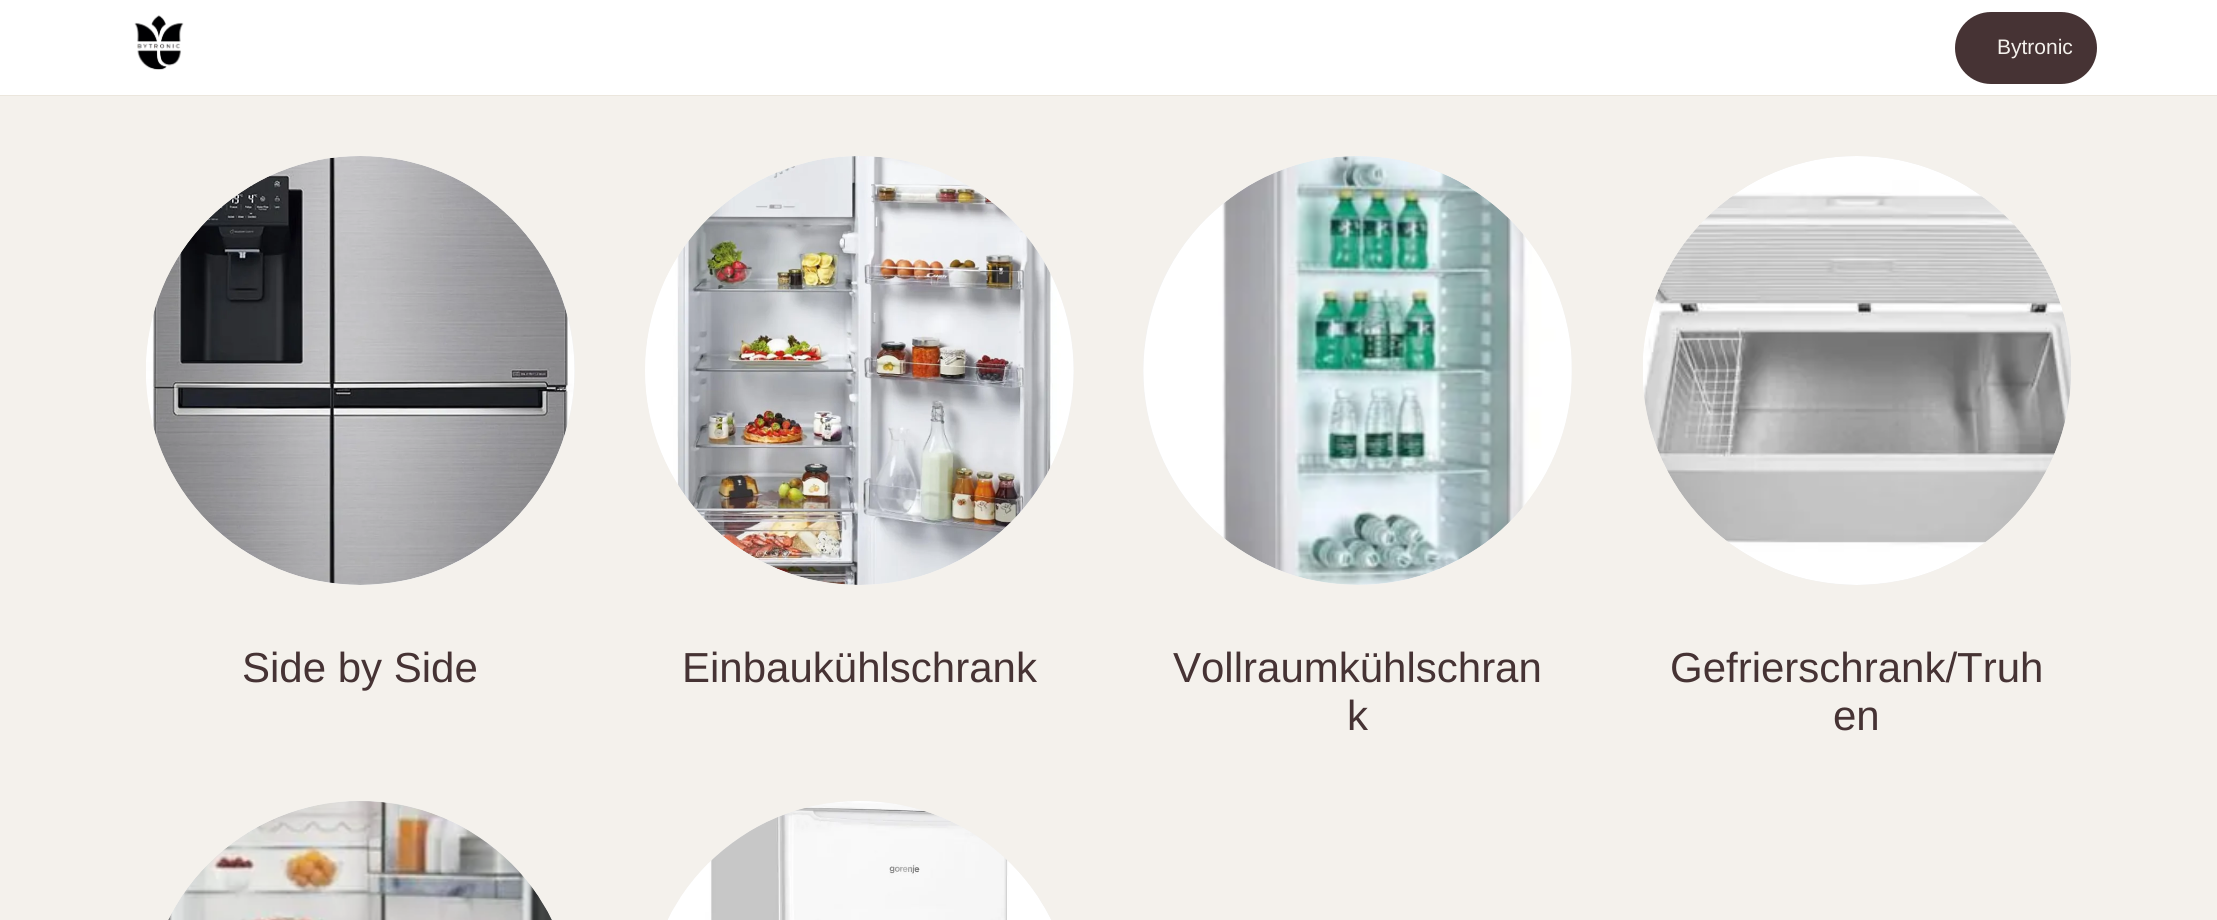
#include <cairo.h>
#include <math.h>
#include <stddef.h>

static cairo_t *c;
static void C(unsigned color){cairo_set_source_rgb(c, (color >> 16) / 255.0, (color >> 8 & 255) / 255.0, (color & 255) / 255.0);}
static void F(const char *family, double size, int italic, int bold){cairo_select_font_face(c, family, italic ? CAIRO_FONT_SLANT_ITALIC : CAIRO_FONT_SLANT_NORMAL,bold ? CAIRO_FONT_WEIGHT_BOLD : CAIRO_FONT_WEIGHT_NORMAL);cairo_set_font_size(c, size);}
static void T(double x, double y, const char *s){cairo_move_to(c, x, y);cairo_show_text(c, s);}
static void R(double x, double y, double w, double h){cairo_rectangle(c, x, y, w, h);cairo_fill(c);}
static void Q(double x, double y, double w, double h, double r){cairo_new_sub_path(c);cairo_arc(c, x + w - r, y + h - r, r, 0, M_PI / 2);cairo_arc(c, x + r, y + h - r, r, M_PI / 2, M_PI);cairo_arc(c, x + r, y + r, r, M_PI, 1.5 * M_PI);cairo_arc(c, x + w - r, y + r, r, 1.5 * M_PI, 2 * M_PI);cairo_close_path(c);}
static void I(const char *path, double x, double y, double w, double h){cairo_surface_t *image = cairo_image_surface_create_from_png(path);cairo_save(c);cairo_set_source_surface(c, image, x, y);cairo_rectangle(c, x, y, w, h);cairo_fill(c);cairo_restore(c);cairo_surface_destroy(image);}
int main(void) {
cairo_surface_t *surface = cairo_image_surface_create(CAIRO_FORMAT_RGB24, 2217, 920);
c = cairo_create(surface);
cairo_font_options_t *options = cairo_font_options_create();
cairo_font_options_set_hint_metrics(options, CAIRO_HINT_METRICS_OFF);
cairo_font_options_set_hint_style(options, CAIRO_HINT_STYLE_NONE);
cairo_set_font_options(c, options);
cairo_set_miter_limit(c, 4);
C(0xffffff);
cairo_paint(c);
C(0xebe6dd);
R(0,95,2217,1);
I("1.png",134,15,50,55);
C(0x463334);
Q(1955,12,142,72,36);
cairo_fill(c);
F("Liberation Sans",21,0,0);
C(0xf4f1ec);
T(1997,54,"Bytronic");
R(0,96,2217,824);
C(0xf1f1f1);
cairo_new_path(c);
cairo_move_to(c,575,370);
cairo_curve_to(c,575,314,552,259,512,219);
cairo_curve_to(c,417,124,258,138,183,251);
cairo_curve_to(c,159,286,146,328,146,370);
cairo_curve_to(c,146,423,166,476,202,515);
cairo_curve_to(c,295,617,460,607,538,490);
cairo_curve_to(c,562,455,575,413,575,370);
cairo_close_path(c);
cairo_fill(c);
I("2.png",146,156,429,429);
F("Liberation Sans",42,0,0);
C(0x463334);
T(242,682,"Side by Side");
C(0xf1f1f1);
cairo_new_path(c);
cairo_move_to(c,1074,370);
cairo_curve_to(c,1074,314,1051,259,1011,219);
cairo_curve_to(c,916,124,757,138,682,251);
cairo_curve_to(c,658,286,645,328,645,370);
cairo_curve_to(c,645,425,666,478,704,518);
cairo_curve_to(c,797,617,960,605,1037,490);
cairo_curve_to(c,1061,455,1074,413,1074,370);
cairo_close_path(c);
cairo_fill(c);
I("3.png",645,156,429,429);
C(0x463334);
T(682,682,"Einbaukühlschrank");
C(0xf1f1f1);
cairo_new_path(c);
cairo_move_to(c,1572,370);
cairo_curve_to(c,1572,252,1476,156,1358,156);
cairo_curve_to(c,1239,156,1143,252,1143,370);
cairo_curve_to(c,1143,489,1239,585,1358,585);
cairo_line_to(c,1370,585);
cairo_curve_to(c,1483,578,1572,485,1572,370);
cairo_close_path(c);
cairo_fill(c);
I("4.png",1143,156,429,429);
C(0x463334);
T(1173,682,"Vollraumkühlschran");
T(1347,730,"k");
C(0xf1f1f1);
cairo_new_path(c);
cairo_move_to(c,2071,370);
cairo_curve_to(c,2071,252,1975,156,1857,156);
cairo_curve_to(c,1739,156,1643,252,1643,370);
cairo_curve_to(c,1643,487,1735,581,1850,585);
cairo_line_to(c,1857,585);
cairo_curve_to(c,1975,585,2071,489,2071,370);
cairo_close_path(c);
cairo_fill(c);
I("5.png",1643,156,428,429);
C(0x463334);
T(1670,682,"Gefrierschrank/Truh");
T(1833,730,"en");
C(0xf1f1f1);
cairo_new_path(c);
cairo_move_to(c,360,801);
cairo_curve_to(c,435,801,500,839,538,896);
cairo_curve_to(c,561,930,575,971,575,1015);
cairo_curve_to(c,575,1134,479,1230,360,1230);
cairo_curve_to(c,282,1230,214,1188,176,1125);
cairo_curve_to(c,157,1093,146,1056,146,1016);
cairo_curve_to(c,146,897,242,801,360,801);
cairo_close_path(c);
cairo_fill(c);
I("6.png",168,801,384,119);
cairo_new_path(c);
cairo_move_to(c,860,801);
cairo_curve_to(c,912,801,961,820,998,852);
cairo_curve_to(c,1044,891,1074,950,1074,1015);
cairo_curve_to(c,1074,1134,978,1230,859,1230);
cairo_curve_to(c,803,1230,752,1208,714,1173);
cairo_curve_to(c,671,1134,645,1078,645,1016);
cairo_curve_to(c,645,897,741,801,860,801);
cairo_close_path(c);
cairo_fill(c);
I("7.png",668,801,383,119);
cairo_surface_write_to_png(surface, "o.png");
cairo_font_options_destroy(options);
cairo_destroy(c);
cairo_surface_destroy(surface);
return 0;
}
